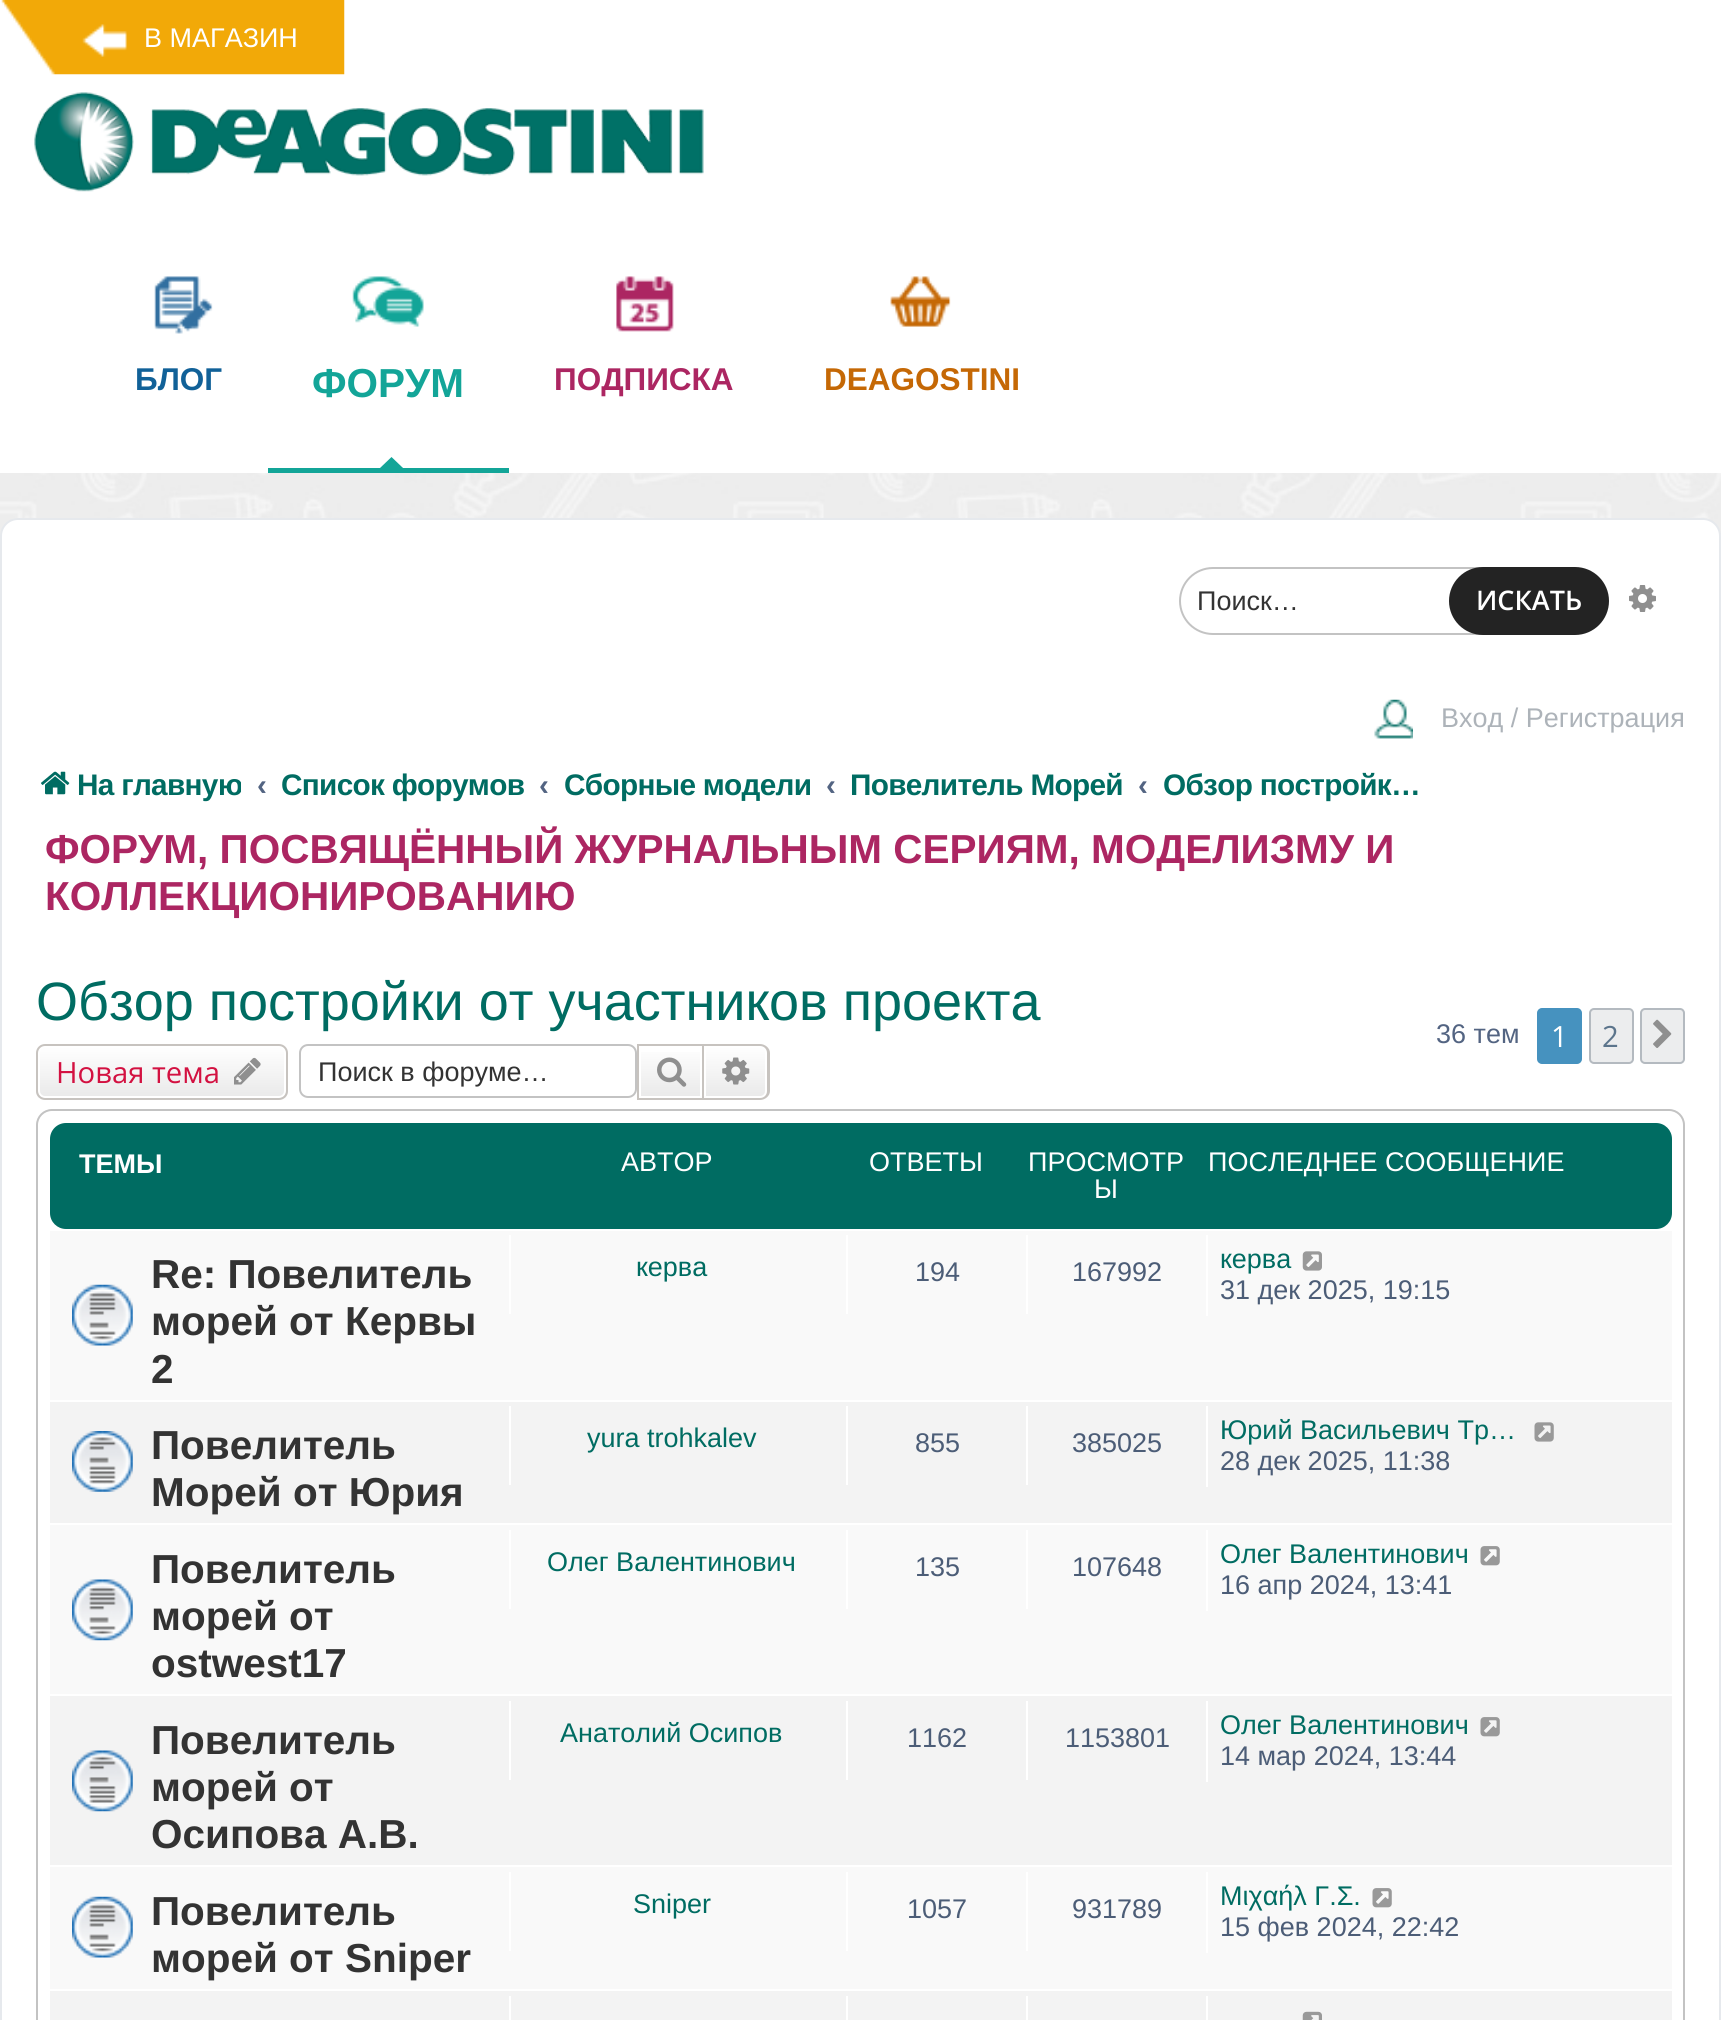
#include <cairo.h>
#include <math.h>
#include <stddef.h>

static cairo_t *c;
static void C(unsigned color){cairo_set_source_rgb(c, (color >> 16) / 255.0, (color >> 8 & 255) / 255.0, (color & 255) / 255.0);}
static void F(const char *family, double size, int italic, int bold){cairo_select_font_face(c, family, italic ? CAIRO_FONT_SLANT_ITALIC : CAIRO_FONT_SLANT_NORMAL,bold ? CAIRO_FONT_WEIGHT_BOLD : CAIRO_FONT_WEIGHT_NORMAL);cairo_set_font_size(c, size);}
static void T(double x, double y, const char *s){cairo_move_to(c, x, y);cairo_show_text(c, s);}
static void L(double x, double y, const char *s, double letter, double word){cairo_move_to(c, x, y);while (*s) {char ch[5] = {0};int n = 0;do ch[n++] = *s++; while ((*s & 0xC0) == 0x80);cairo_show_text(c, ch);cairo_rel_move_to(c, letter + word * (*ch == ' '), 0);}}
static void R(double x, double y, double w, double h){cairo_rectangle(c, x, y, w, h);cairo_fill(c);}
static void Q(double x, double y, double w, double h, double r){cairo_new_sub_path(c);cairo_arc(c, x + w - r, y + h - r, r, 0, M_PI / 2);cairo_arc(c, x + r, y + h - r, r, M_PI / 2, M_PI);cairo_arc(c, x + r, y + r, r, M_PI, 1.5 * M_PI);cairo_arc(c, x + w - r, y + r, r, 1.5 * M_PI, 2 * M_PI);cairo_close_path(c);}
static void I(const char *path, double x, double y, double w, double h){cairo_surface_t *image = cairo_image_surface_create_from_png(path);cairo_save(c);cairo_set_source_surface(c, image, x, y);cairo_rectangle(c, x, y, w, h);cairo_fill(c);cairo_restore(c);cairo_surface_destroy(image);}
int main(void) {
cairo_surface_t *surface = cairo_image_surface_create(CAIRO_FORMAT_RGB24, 1721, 2020);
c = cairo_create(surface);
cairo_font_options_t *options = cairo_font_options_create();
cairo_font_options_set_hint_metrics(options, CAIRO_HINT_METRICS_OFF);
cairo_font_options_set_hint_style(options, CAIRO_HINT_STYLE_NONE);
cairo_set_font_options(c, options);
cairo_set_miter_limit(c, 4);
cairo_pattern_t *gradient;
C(0xffffff);
cairo_paint(c);
I("1.png",0,473,1721,63);
I("2.png",1,0,344,75);
F("Liberation Sans",27,0,0);
C(0xffffff);
T(144,47,"В МАГАЗИН");
I("3.png",34,92,670,100);
I("4.png",154,276,59,58);
F("Liberation Sans",31.5,0,1);
C(0x116198);
T(135,390,"БЛОГ");
I("5.png",352,276,72,51);
C(0x13a598);
R(268,468,241,5);
F("Liberation Sans",40.5,0,1);
T(312,397,"ФОРУМ");
cairo_new_path(c);
cairo_move_to(c,403,468);
cairo_line_to(c,380,468);
cairo_line_to(c,391.5,457);
cairo_close_path(c);
cairo_fill(c);
I("6.png",616,276,58,56);
F("Liberation Sans",31.5,0,1);
C(0xac2662);
T(554,390,"ПОДПИСКА");
I("7.png",890,276,61,51);
C(0xc56805);
T(824,390,"DEAGOSTINI");
C(0xffffff);
Q(1,519,1719,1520,17);
cairo_fill_preserve(c);
C(0xe6e9ed);
cairo_stroke(c);
Q(1180,568,336,66,33);
C(0xc3c3c3);
cairo_stroke(c);
F("Liberation Sans",27,0,0);
C(0x333333);
T(1197,610,"Поиск…");
C(0x232323);
Q(1449,567,160,68,34);
cairo_fill(c);
F("Open Sans SemiBold",27,0,0);
C(0xffffff);
T(1476,610,"ИСКАТЬ");
I("8.png",1629,585,27,27);
I("9.png",1374,699,39,40);
F("Liberation Sans",27,0,0);
C(0xadb3b9);
T(1441,727,"Вход / Регистрация");
I("10.png",41,771,29,24);
cairo_save(c);
cairo_rectangle(c,36,752,205,65);
cairo_clip(c);
F("Liberation Sans",29.75,0,1);
C(0x006c62);
L(77,795,"На главную",-.7,0);
cairo_restore(c);
F("Liberation Sans",29.75,0,1);
C(0x536482);
T(257,795,"‹");
C(0x006c62);
L(281,795,"Список форумов",-.7,0);
C(0x536482);
T(539,795,"‹");
C(0x006c62);
L(564,795,"Сборные модели",-.7,0);
C(0x536482);
T(826,795,"‹");
C(0x006c62);
L(850,795,"Повелитель Морей",-.7,0);
C(0x536482);
T(1138,795,"‹");
C(0x006c62);
L(1163,795,"Обзор постройк…",-.7,0);
F("Liberation Sans",40.5,0,1);
C(0xac2662);
T(45,863,"ФОРУМ, ПОСВЯЩЁННЫЙ ЖУРНАЛЬНЫМ СЕРИЯМ, МОДЕЛИЗМУ И");
T(45,910,"КОЛЛЕКЦИОНИРОВАНИЮ");
F("Liberation Sans",54,0,0);
C(0x006c62);
T(36,1020,"Обзор постройки от участников проекта");
F("Liberation Sans",27,0,0);
C(0x536482);
T(1436,1043,"36 тем");
C(0x4692bf);
Q(1538,1009,43,54,4);
cairo_fill_preserve(c);
cairo_stroke(c);
F("Open Sans",29.25,0,0);
C(0xffffff);
T(1551,1047,"1");
C(0xecedee);
Q(1590,1009,43,54,4);
cairo_fill_preserve(c);
C(0xb4bac0);
cairo_stroke(c);
C(0x5c758c);
T(1602,1047,"2");
C(0xecedee);
Q(1641,1009,43,54,4);
cairo_fill_preserve(c);
C(0xb4bac0);
cairo_stroke(c);
I("11.png",1653,1019,19,29);
cairo_save(c);
Q(36,1044,252,56,9);
cairo_clip(c);
gradient = cairo_pattern_create_linear(162,1046,162,1098);
cairo_pattern_add_color_stop_rgba(gradient,0,1,1,1,1);
cairo_pattern_add_color_stop_rgba(gradient,1,0.914,0.914,0.914,1);
cairo_set_source(c,gradient);
cairo_pattern_destroy(gradient);
R(36,1046,252,52);
cairo_restore(c);
Q(39,1047,246,50,6);
C(0xffffff);
cairo_stroke(c);
Q(37,1045,250,54,8);
C(0xc7c3bf);
cairo_stroke(c);
C(0xd31141);
T(56,1083,"Новая тема");
I("12.png",234,1057,27,28);
Q(300,1045,336,52,8);
C(0xc3c3c3);
cairo_stroke(c);
F("Liberation Sans",27,0,0);
C(0x333333);
T(318,1081,"Поиск в форуме…");
gradient = cairo_pattern_create_linear(671,1046,671,1098);
cairo_pattern_add_color_stop_rgba(gradient,0,1,1,1,1);
cairo_pattern_add_color_stop_rgba(gradient,1,0.914,0.914,0.914,1);
cairo_set_source(c,gradient);
cairo_pattern_destroy(gradient);
R(641,1052,59,44);
cairo_rectangle(c,638,1045,65,54);
C(0xc7c3bf);
cairo_stroke(c);
I("13.png",657,1057,30,30);
gradient = cairo_pattern_create_linear(736,1046,736,1098);
cairo_pattern_add_color_stop_rgba(gradient,0,1,1,1,1);
cairo_pattern_add_color_stop_rgba(gradient,1,0.914,0.914,0.914,1);
cairo_set_source(c,gradient);
cairo_pattern_destroy(gradient);
cairo_new_path(c);
cairo_move_to(c,705,1047);
cairo_line_to(c,760,1047);
cairo_curve_to(c,763.5,1047,766,1049.5,766,1053);
cairo_line_to(c,766,1091);
cairo_curve_to(c,766,1094.5,763.5,1097,760,1097);
cairo_line_to(c,705,1097);
cairo_close_path(c);
cairo_fill_preserve(c);
C(0xffffff);
cairo_stroke(c);
C(0xc7c3bf);
cairo_set_fill_rule(c,CAIRO_FILL_RULE_EVEN_ODD);
cairo_new_path(c);
cairo_move_to(c,704,1044);
cairo_line_to(c,760,1044);
cairo_curve_to(c,765,1044,770,1048,770,1053);
cairo_line_to(c,770,1091);
cairo_curve_to(c,770,1096,765,1100,760,1100);
cairo_line_to(c,704,1100);
cairo_close_path(c);
cairo_move_to(c,704,1046);
cairo_line_to(c,760,1046);
cairo_curve_to(c,764,1046,767,1049,767,1053);
cairo_line_to(c,767,1091);
cairo_curve_to(c,767,1095,764,1098,760,1098);
cairo_line_to(c,704,1098);
cairo_close_path(c);
cairo_fill(c);
I("14.png",722,1057,28,28);
Q(37,1110,1647,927,15);
C(0xc3c3c3);
cairo_stroke(c);
C(0x006c62);
Q(50,1123,1622,106,16);
cairo_fill(c);
F("Liberation Sans",27,0,1);
C(0xffffff);
T(79,1173,"ТЕМЫ");
F("Liberation Sans",27,0,0);
T(621,1171,"АВТОР");
T(869,1171,"ОТВЕТЫ");
T(1028,1171,"ПРОСМОТР");
T(1094,1198,"Ы");
T(1208,1171,"ПОСЛЕДНЕЕ СООБЩЕНИЕ");
C(0xf9f9f9);
R(50,1231,1622,169);
I("15.png",72,1284,61,62);
F("Liberation Sans",40.5,0,1);
C(0x333333);
T(151,1288,"Re: Повелитель");
T(151,1335,"морей от Кервы");
T(151,1383,"2");
C(0xffffff);
R(509,1235,2,79);
F("Liberation Sans",27,0,0);
C(0x006c62);
T(636,1276,"керва");
C(0xffffff);
R(846,1235,2,79);
C(0x4c5d77);
T(915,1281,"194");
C(0xffffff);
R(1026,1235,2,79);
C(0x4c5d77);
T(1072,1281,"167992");
C(0xffffff);
R(1206,1235,2,81);
C(0x006c62);
T(1220,1268,"керва");
I("16.png",1302,1251,20,20);
C(0x4c5d77);
T(1220,1299,"31 дек 2025, 19:15");
C(0xf3f3f3);
R(50,1402,1622,121);
I("17.png",72,1431,61,61);
F("Liberation Sans",40.5,0,1);
C(0x333333);
T(151,1459,"Повелитель");
T(151,1506,"Морей от Юрия");
C(0xffffff);
R(509,1406,2,79);
F("Liberation Sans",27,0,0);
C(0x006c62);
T(587,1447,"yura trohkalev");
C(0xffffff);
R(846,1406,2,79);
C(0x4c5d77);
T(915,1452,"855");
C(0xffffff);
R(1026,1406,2,79);
C(0x4c5d77);
T(1072,1452,"385025");
C(0xffffff);
R(1206,1406,2,81);
C(0x006c62);
T(1220,1439,"Юрий Васильевич Тр…");
I("18.png",1534,1422,20,20);
C(0x4c5d77);
T(1220,1470,"28 дек 2025, 11:38");
C(0xf9f9f9);
R(50,1525,1622,169);
I("19.png",72,1579,61,62);
F("Liberation Sans",40.5,0,1);
C(0x333333);
T(151,1583,"Повелитель");
T(151,1630,"морей от");
T(151,1677,"ostwest17");
C(0xffffff);
R(509,1530,2,79);
F("Liberation Sans",27,0,0);
C(0x006c62);
T(547,1571,"Олег Валентинович");
C(0xffffff);
R(846,1530,2,79);
C(0x4c5d77);
T(915,1576,"135");
C(0xffffff);
R(1026,1530,2,79);
C(0x4c5d77);
T(1072,1576,"107648");
C(0xffffff);
R(1206,1530,2,81);
C(0x006c62);
T(1220,1563,"Олег Валентинович");
I("20.png",1480,1546,20,20);
C(0x4c5d77);
T(1220,1594,"16 апр 2024, 13:41");
C(0xf3f3f3);
R(50,1696,1622,169);
I("21.png",72,1750,61,62);
F("Liberation Sans",40.5,0,1);
C(0x333333);
T(151,1754,"Повелитель");
T(151,1801,"морей от");
T(151,1848,"Осипова А.В.");
C(0xffffff);
R(509,1701,2,79);
F("Liberation Sans",27,0,0);
C(0x006c62);
T(560,1742,"Анатолий Осипов");
C(0xffffff);
R(846,1701,2,79);
C(0x4c5d77);
T(907,1747,"1162");
C(0xffffff);
R(1026,1701,2,79);
C(0x4c5d77);
T(1065,1747,"1153801");
C(0xffffff);
R(1206,1701,2,81);
C(0x006c62);
T(1220,1734,"Олег Валентинович");
I("22.png",1480,1717,20,20);
C(0x4c5d77);
T(1220,1765,"14 мар 2024, 13:44");
C(0xf9f9f9);
R(50,1867,1622,122);
I("23.png",72,1896,61,62);
F("Liberation Sans",40.5,0,1);
C(0x333333);
T(151,1925,"Повелитель");
T(151,1972,"морей от Sniper");
C(0xffffff);
R(509,1872,2,79);
F("Liberation Sans",27,0,0);
C(0x006c62);
T(633,1913,"Sniper");
C(0xffffff);
R(846,1872,2,79);
C(0x4c5d77);
T(907,1918,"1057");
C(0xffffff);
R(1026,1872,2,79);
C(0x4c5d77);
T(1072,1918,"931789");
C(0xffffff);
R(1206,1872,2,81);
C(0x006c62);
T(1220,1905,"Μιχαήλ Γ.Σ.");
I("20.png",1372,1888,20,20);
C(0x4c5d77);
T(1220,1936,"15 фев 2024, 22:42");
C(0xf3f3f3);
R(50,1991,1622,29);
C(0xffffff);
R(509,1996,2,24);
R(846,1996,2,24);
R(1026,1996,2,24);
R(1206,1996,2,24);
I("24.png",1302,2011,20,9);
cairo_surface_write_to_png(surface, "o.png");
cairo_font_options_destroy(options);
cairo_destroy(c);
cairo_surface_destroy(surface);
return 0;
}
